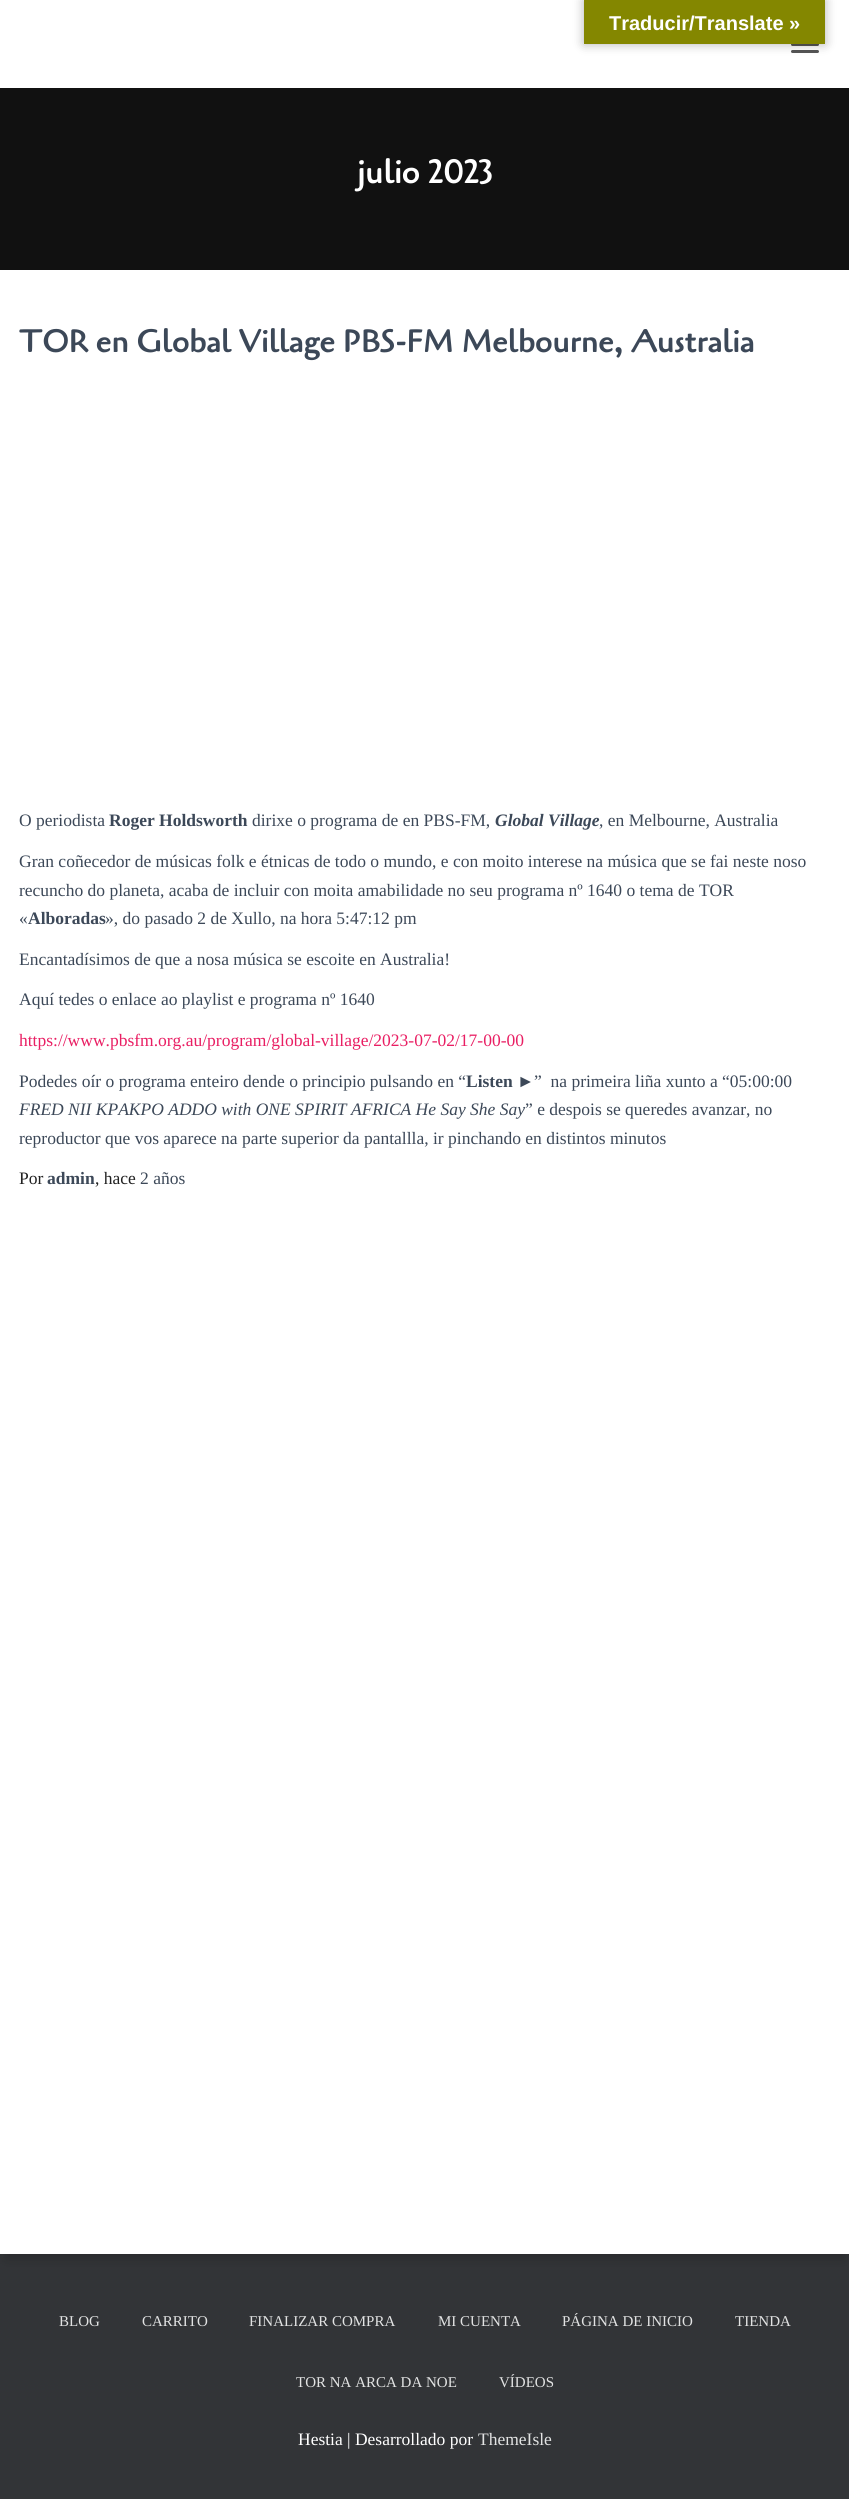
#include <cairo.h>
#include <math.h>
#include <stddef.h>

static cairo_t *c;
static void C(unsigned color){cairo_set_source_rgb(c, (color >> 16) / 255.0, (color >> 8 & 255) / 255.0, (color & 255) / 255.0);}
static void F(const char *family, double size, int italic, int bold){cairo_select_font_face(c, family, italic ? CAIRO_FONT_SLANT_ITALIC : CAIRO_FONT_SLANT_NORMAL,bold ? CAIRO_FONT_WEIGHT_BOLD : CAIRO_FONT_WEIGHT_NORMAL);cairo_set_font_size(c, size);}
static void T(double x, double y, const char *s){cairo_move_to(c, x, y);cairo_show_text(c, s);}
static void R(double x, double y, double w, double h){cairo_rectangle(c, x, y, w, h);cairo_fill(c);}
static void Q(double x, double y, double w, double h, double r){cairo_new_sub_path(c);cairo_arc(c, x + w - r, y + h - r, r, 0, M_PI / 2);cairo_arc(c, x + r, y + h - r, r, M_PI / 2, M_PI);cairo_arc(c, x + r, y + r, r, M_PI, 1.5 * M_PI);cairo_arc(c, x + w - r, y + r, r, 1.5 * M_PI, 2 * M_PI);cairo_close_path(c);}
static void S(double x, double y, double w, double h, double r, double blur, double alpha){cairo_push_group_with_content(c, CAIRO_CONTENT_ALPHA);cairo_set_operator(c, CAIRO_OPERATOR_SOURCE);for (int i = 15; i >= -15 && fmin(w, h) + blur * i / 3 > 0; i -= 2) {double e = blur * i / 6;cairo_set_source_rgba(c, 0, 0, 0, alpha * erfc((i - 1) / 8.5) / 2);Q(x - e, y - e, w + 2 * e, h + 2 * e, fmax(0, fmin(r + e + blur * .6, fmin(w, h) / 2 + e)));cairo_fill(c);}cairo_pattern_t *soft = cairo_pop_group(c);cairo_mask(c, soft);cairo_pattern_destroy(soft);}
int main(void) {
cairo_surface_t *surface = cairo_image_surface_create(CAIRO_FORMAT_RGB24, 849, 2499);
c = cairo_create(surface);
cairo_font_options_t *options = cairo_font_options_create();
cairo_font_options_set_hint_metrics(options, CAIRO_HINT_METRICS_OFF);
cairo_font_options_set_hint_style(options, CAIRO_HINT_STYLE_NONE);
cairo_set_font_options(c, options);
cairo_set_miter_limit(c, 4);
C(0x323437);
cairo_paint(c);
C(0xffffff);
R(0,0,849,88);
C(0x555555);
Q(791,43,28,3,1.5);
cairo_fill(c);
Q(791,50,28,3,1.5);
cairo_fill(c);
C(0x000000);
S(584,0,241,44,0,5.5,.3);
C(0x848700);
R(584,0,241,44);
F("Liberation Sans",20,0,1);
C(0xffffff);
T(609,30,"Traducir/Translate »");
C(0x111111);
R(0,88,849,182);
F("Cagliostro",32.5,0,1);
C(0xffffff);
T(357,183,"julio 2023");
C(0x000000);
S(6,286,838,1972,0,6,.2);
C(0xffffff);
R(0,270,849,1984);
F("Cagliostro",31.25,0,1);
C(0x3c4858);
T(19,352,"TOR en Global Village PBS-FM Melbourne, Australia");
F("Liberation Serif",17.5,0,0);
T(19,826,"O periodista");
F("Liberation Serif",17.5,0,1);
T(109,826,"Roger Holdsworth");
F("Liberation Serif",17.5,0,0);
T(252,826,"dirixe o programa de en PBS-FM,");
F("Liberation Serif",17.5,1,1);
T(495,826,"Global Village");
F("Liberation Serif",17.5,0,0);
T(599,826,", en Melbourne, Australia");
T(19,867,"Gran coñecedor de músicas folk e étnicas de todo o mundo, e con moito interese na música que se fai neste noso");
T(19,896,"recuncho do planeta, acaba de incluir con moita amabilidade no seu programa nº 1640 o tema de TOR");
T(19,924,"«");
F("Liberation Serif",17.5,0,1);
T(28,924,"Alboradas");
F("Liberation Serif",17.5,0,0);
T(105,924,"», do pasado 2 de Xullo, na hora 5:47:12 pm");
T(19,965,"Encantadísimos de que a nosa música se escoite en Australia!");
T(19,1005,"Aquí tedes o enlace ao playlist e programa nº 1640");
C(0xe91e63);
T(19,1046,"https://www.pbsfm.org.au/program/global-village/2023-07-02/17-00-00");
C(0x3c4858);
T(19,1087,"Podedes oír o programa enteiro dende o principio pulsando en “");
F("Liberation Serif",17.5,0,1);
T(466,1087,"Listen ►");
F("Liberation Serif",17.5,0,0);
T(534,1087,"”  na primeira liña xunto a “05:00:00");
F("Liberation Serif",17.5,1,0);
T(19,1115,"FRED NII KPAKPO ADDO with ONE SPIRIT AFRICA He Say She Say");
F("Liberation Serif",17.5,0,0);
T(525,1115,"” e despois se queredes avanzar, no");
T(19,1144,"reproductor que vos aparece na parte superior da pantallla, ir pinchando en distintos minutos");
C(0x212121);
T(19,1184,"Por");
F("Liberation Serif",17.5,0,1);
C(0x3c4858);
T(47,1184,"admin");
F("Liberation Serif",17.5,0,0);
C(0x212121);
T(95,1184,", hace");
C(0x3c4858);
T(140,1184,"2 años");
F("Liberation Serif",15,0,0);
C(0xe2e3e3);
T(59,2326,"BLOG");
T(142,2326,"CARRITO");
T(249,2326,"FINALIZAR COMPRA");
T(438,2326,"MI CUENTA");
T(562,2326,"PÁGINA DE INICIO");
T(735,2326,"TIENDA");
T(296,2387,"TOR NA ARCA DA NOE");
T(499,2387,"VÍDEOS");
F("Liberation Serif",17.5,0,0);
C(0xffffff);
T(298,2445,"Hestia | Desarrollado por");
C(0xe2e3e3);
T(478,2445,"ThemeIsle");
cairo_surface_write_to_png(surface, "o.png");
cairo_font_options_destroy(options);
cairo_destroy(c);
cairo_surface_destroy(surface);
return 0;
}
